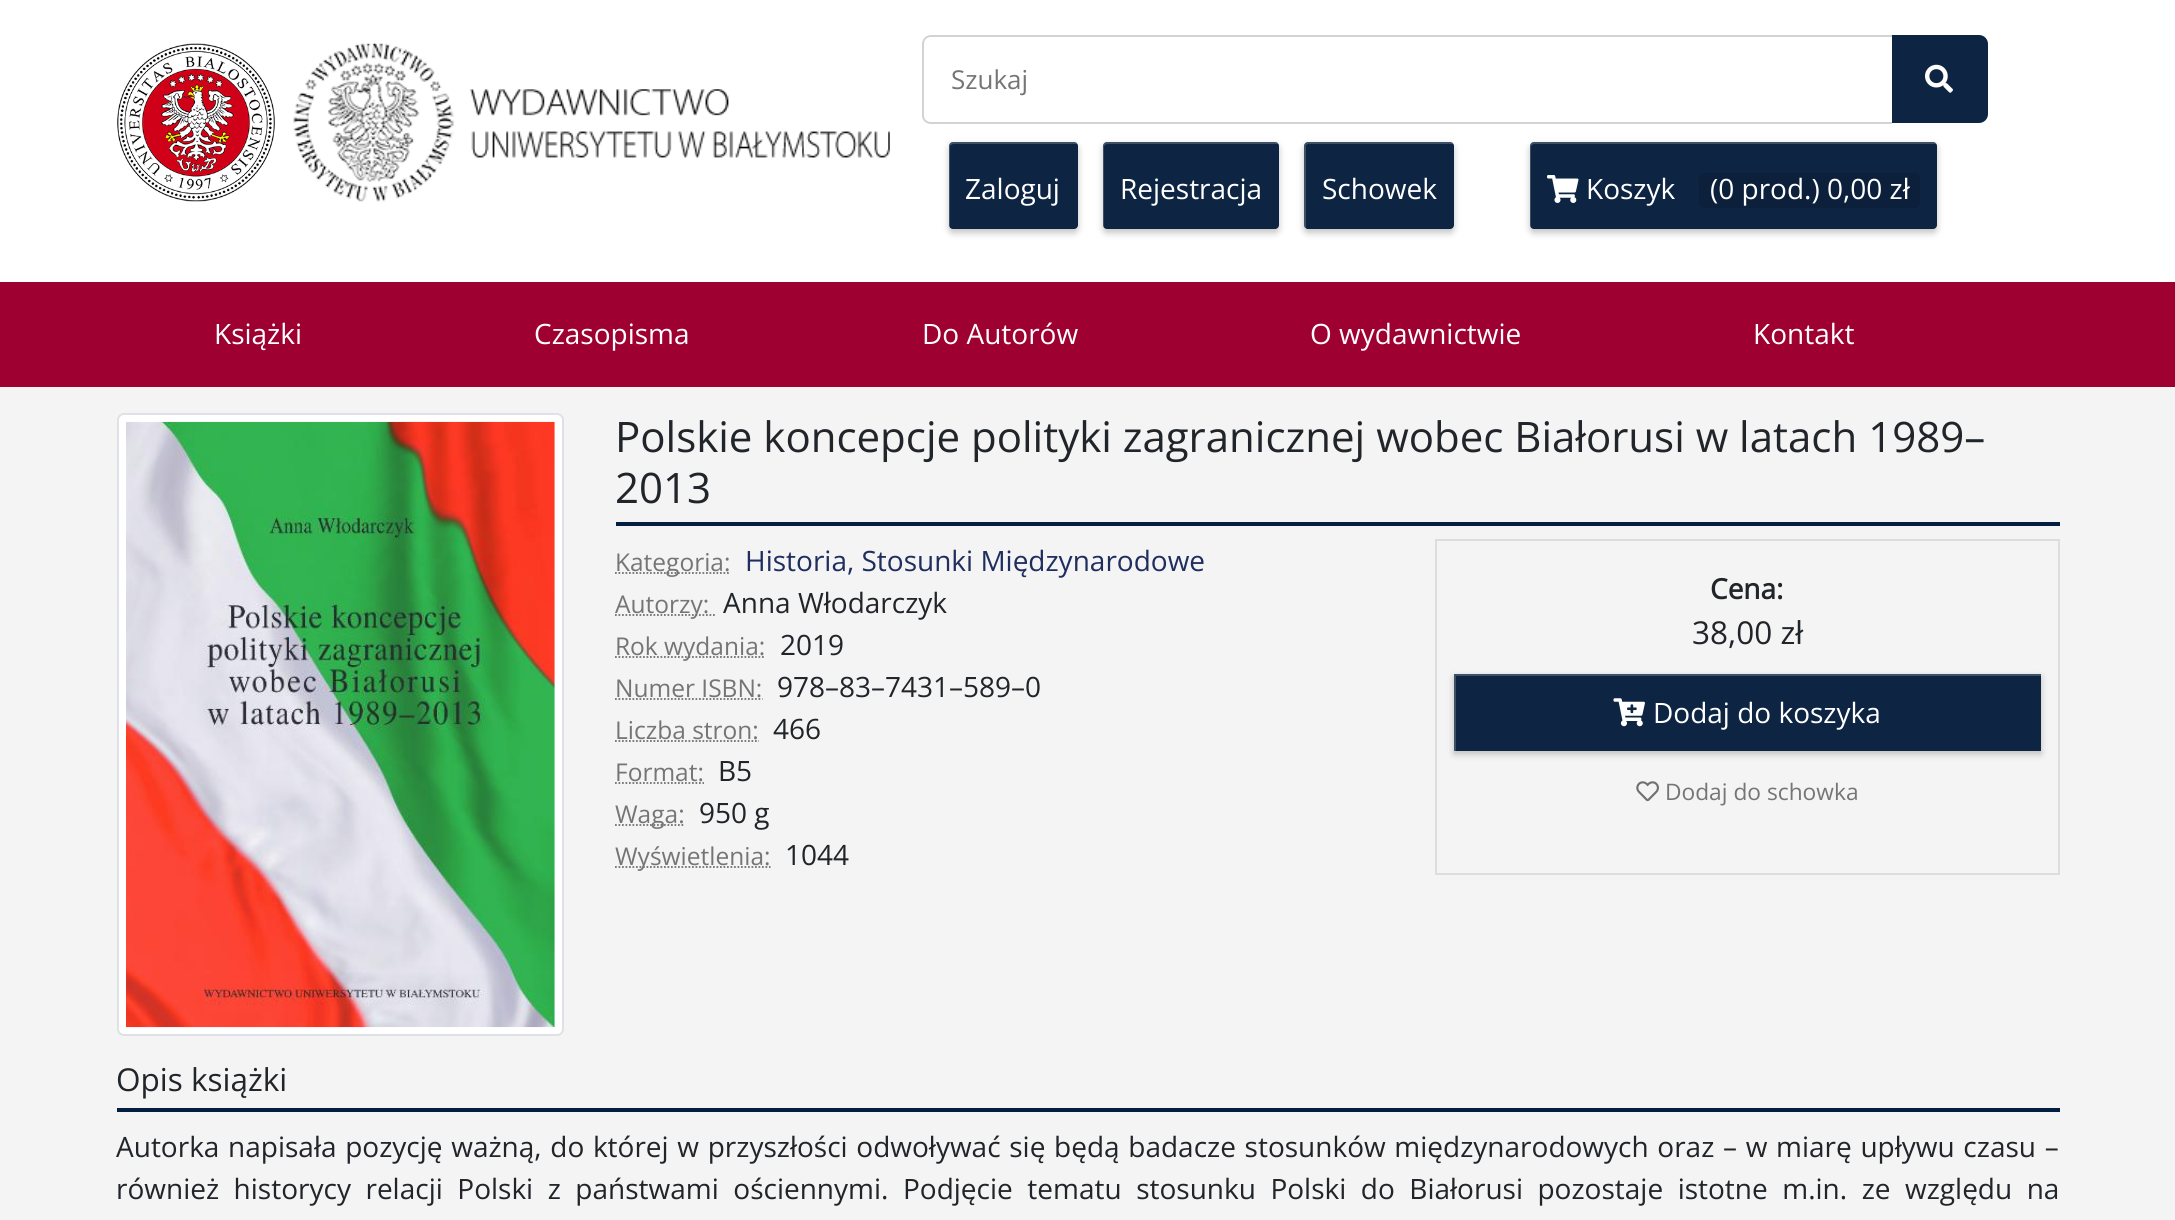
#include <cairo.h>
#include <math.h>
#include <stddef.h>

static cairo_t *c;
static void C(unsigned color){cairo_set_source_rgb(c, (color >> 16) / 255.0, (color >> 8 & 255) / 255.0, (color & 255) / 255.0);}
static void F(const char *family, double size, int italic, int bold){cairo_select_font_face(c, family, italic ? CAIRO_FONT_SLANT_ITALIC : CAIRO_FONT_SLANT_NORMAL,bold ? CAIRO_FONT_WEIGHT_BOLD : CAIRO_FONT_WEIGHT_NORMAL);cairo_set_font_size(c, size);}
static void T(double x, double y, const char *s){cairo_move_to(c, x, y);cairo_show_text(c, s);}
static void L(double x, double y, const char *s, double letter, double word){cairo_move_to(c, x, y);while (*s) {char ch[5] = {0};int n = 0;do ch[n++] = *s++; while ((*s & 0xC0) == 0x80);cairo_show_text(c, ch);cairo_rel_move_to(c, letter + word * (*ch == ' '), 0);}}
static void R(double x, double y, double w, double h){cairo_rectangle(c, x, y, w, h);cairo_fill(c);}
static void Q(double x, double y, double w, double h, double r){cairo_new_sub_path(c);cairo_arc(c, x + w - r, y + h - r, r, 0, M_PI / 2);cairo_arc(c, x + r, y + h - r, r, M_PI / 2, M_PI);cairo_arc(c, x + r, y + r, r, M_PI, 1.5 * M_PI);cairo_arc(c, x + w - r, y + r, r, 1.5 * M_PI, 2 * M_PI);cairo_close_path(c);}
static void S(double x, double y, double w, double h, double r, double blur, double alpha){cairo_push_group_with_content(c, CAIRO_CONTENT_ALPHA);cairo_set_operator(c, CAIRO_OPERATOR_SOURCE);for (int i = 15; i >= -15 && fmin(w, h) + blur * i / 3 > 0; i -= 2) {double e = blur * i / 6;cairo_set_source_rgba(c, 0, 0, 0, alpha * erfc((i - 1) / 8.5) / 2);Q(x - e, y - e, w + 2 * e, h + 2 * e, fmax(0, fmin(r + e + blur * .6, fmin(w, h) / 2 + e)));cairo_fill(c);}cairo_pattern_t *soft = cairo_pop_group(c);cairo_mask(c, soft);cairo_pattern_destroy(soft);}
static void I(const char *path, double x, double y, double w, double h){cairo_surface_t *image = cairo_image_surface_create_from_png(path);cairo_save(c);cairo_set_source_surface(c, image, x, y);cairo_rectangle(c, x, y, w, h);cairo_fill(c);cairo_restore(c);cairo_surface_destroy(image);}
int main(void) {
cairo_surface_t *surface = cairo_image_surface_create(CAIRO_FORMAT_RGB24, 2175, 1220);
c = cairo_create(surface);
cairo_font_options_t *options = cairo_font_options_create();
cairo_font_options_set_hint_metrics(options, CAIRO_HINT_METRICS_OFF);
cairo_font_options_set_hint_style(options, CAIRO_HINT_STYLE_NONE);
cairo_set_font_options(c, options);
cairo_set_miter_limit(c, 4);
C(0xf4f4f4);
cairo_paint(c);
C(0xffffff);
R(0,0,2175,282);
I("1.png",117,43,158,159);
I("2.png",293,43,597,159);
C(0xd3d3d3);
cairo_set_fill_rule(c,CAIRO_FILL_RULE_EVEN_ODD);
cairo_new_path(c);
cairo_move_to(c,931,35);
cairo_line_to(c,1892,35);
cairo_line_to(c,1892,124);
cairo_line_to(c,931,124);
cairo_curve_to(c,926,124,922,120,922,116);
cairo_line_to(c,922,44);
cairo_curve_to(c,922,39,926,35,931,35);
cairo_close_path(c);
cairo_move_to(c,931,37);
cairo_line_to(c,1892,37);
cairo_line_to(c,1892,122);
cairo_line_to(c,931,122);
cairo_curve_to(c,927,122,924,119,924,116);
cairo_line_to(c,924,44);
cairo_curve_to(c,924,40,927,37,931,37);
cairo_close_path(c);
cairo_fill(c);
F("Open Sans",26,0,0);
C(0x757575);
T(951,89,"Szukaj");
C(0x0d2442);
cairo_new_path(c);
cairo_move_to(c,1892,35);
cairo_line_to(c,1979,35);
cairo_curve_to(c,1984,35,1988,39,1988,44);
cairo_line_to(c,1988,114);
cairo_curve_to(c,1988,119,1984,123,1979,123);
cairo_line_to(c,1892,123);
cairo_close_path(c);
cairo_fill(c);
I("3.png",1925,64,28,29);
C(0x000000);
S(949,145,129,88,4,3.5,.23);
C(0x0d2442);
Q(949,142,129,87,4);
cairo_fill(c);
cairo_set_source_rgba(c,1,1,1,0.2);
cairo_set_fill_rule(c,CAIRO_FILL_RULE_WINDING);
cairo_new_path(c);
cairo_move_to(c,954,144);
cairo_line_to(c,1078,144);
cairo_curve_to(c,1077,143,1076,142,1074,142);
cairo_line_to(c,953,142);
cairo_curve_to(c,951,142,949,144,949,146);
cairo_line_to(c,949,225);
cairo_curve_to(c,949,226,949,227,950,228);
cairo_line_to(c,950,147);
cairo_curve_to(c,950,145,952,144,954,144);
cairo_close_path(c);
cairo_fill(c);
F("Open Sans",28,0,0);
C(0xffffff);
T(965,199,"Zaloguj");
C(0x000000);
S(1103,145,176,88,4,3.5,.23);
C(0x0d2442);
Q(1103,142,176,87,4);
cairo_fill(c);
cairo_set_source_rgba(c,1,1,1,0.2);
cairo_new_path(c);
cairo_move_to(c,1108,144);
cairo_line_to(c,1279,144);
cairo_curve_to(c,1278,143,1277,142,1275,142);
cairo_line_to(c,1107,142);
cairo_curve_to(c,1105,142,1103,144,1103,146);
cairo_line_to(c,1103,225);
cairo_curve_to(c,1103,226,1103,227,1104,228);
cairo_line_to(c,1104,147);
cairo_curve_to(c,1104,145,1106,144,1108,144);
cairo_close_path(c);
cairo_fill(c);
C(0xffffff);
T(1120,199,"Rejestracja");
C(0x000000);
S(1304,145,150,88,4,3.5,.23);
C(0x0d2442);
Q(1304,142,150,87,4);
cairo_fill(c);
cairo_set_source_rgba(c,1,1,1,0.2);
cairo_new_path(c);
cairo_move_to(c,1309,144);
cairo_line_to(c,1454,144);
cairo_curve_to(c,1453,143,1452,142,1450,142);
cairo_line_to(c,1308,142);
cairo_curve_to(c,1306,142,1304,144,1304,146);
cairo_line_to(c,1304,225);
cairo_curve_to(c,1304,227,1305,228,1306,229);
cairo_line_to(c,1306,146);
cairo_curve_to(c,1306,145,1307,144,1309,144);
cairo_close_path(c);
cairo_fill(c);
C(0xffffff);
T(1322,199,"Schowek");
C(0x000000);
S(1530,145,407,88,4,3.5,.23);
C(0x0d2442);
Q(1530,142,407,87,4);
cairo_fill(c);
cairo_set_source_rgba(c,1,1,1,0.2);
cairo_new_path(c);
cairo_move_to(c,1535,144);
cairo_line_to(c,1937,144);
cairo_curve_to(c,1936,143,1935,142,1933,142);
cairo_line_to(c,1534,142);
cairo_curve_to(c,1532,142,1530,144,1530,146);
cairo_line_to(c,1530,225);
cairo_curve_to(c,1530,226,1530,227,1531,228);
cairo_line_to(c,1531,147);
cairo_curve_to(c,1531,145,1533,144,1535,144);
cairo_close_path(c);
cairo_fill(c);
I("4.png",1547,175,32,28);
C(0xffffff);
T(1586,199,"Koszyk");
C(0x0c203b);
Q(1699,173,221,35,5);
cairo_fill(c);
C(0xffffff);
T(1710,199,"(0 prod.) 0,00 zł");
C(0x9e0032);
R(0,282,2175,105);
C(0xffffff);
T(214,344,"Książki");
T(534,344,"Czasopisma");
T(922,344,"Do Autorów");
T(1310,344,"O wydawnictwie");
T(1753,344,"Kontakt");
Q(118,414,445,621,6);
cairo_fill_preserve(c);
C(0xdee2e6);
cairo_stroke(c);
I("5.png",126,421,429,607);
C(0x041e42);
R(616,522,1444,4);
F("Open Sans",42,0,0);
C(0x212529);
T(615,452,"Polskie koncepcje polityki zagranicznej wobec Białorusi w latach 1989–");
T(615,503,"2013");
cairo_new_path(c);
cairo_move_to(c,615,573);
cairo_line_to(c,730.5,573);
C(0x707070);
cairo_set_line_width(c,1.8);
cairo_set_dash(c,(double[]){1.75,1.75},2,0);
cairo_stroke(c);
F("Open Sans",24.5,0,0);
C(0x757575);
T(615,571,"Kategoria:");
F("Open Sans",28,0,0);
C(0x202e5f);
T(745,571,"Historia, Stosunki Międzynarodowe");
cairo_new_path(c);
cairo_move_to(c,615,615);
cairo_line_to(c,715.5,615);
C(0x707070);
cairo_stroke(c);
F("Open Sans",24.5,0,0);
C(0x757575);
T(615,613,"Autorzy:");
F("Open Sans",28,0,0);
C(0x212529);
T(723,613,"Anna Włodarczyk");
cairo_new_path(c);
cairo_move_to(c,615,657);
cairo_line_to(c,765.5,657);
C(0x707070);
cairo_stroke(c);
F("Open Sans",24.5,0,0);
C(0x757575);
T(615,655,"Rok wydania:");
F("Open Sans",28,0,0);
C(0x212529);
T(780,655,"2019");
F("Open Sans",24.5,0,0);
C(0x757575);
T(615,697,"Numer ISBN:");
cairo_new_path(c);
cairo_move_to(c,615,699);
cairo_line_to(c,762.5,699);
C(0x707070);
cairo_stroke(c);
F("Open Sans",28,0,0);
C(0x212529);
T(777,697,"978–83–7431–589–0");
F("Open Sans",24.5,0,0);
C(0x757575);
T(615,739,"Liczba stron:");
cairo_new_path(c);
cairo_move_to(c,615,741);
cairo_line_to(c,759,741);
C(0x707070);
cairo_stroke(c);
F("Open Sans",28,0,0);
C(0x212529);
T(773,739,"466");
F("Open Sans",24.5,0,0);
C(0x757575);
T(615,781,"Format:");
cairo_new_path(c);
cairo_move_to(c,615,783);
cairo_line_to(c,704,783);
C(0x707070);
cairo_stroke(c);
F("Open Sans",28,0,0);
C(0x212529);
T(718,781,"B5");
cairo_new_path(c);
cairo_move_to(c,615,825);
cairo_line_to(c,684.5,825);
C(0x707070);
cairo_stroke(c);
F("Open Sans",24.5,0,0);
C(0x757575);
T(615,823,"Waga:");
F("Open Sans",28,0,0);
C(0x212529);
T(699,823,"950 g");
cairo_new_path(c);
cairo_move_to(c,615,867);
cairo_line_to(c,770.5,867);
C(0x707070);
cairo_stroke(c);
F("Open Sans",24.5,0,0);
C(0x757575);
T(615,865,"Wyświetlenia:");
F("Open Sans",28,0,0);
C(0x212529);
T(785,865,"1044");
cairo_rectangle(c,1436,540,623,334);
C(0xdddddd);
cairo_set_line_width(c,2);
cairo_set_dash(c,NULL,0,0);
cairo_stroke(c);
F("Open Sans",28,0,1);
C(0x212529);
T(1710,599,"Cena:");
F("Open Sans",31.5,0,0);
T(1692,644,"38,00 zł");
C(0x000000);
S(1454,677,587,77,0,3.5,.23);
C(0x0d2442);
R(1456,676,585,75);
cairo_save(c);
cairo_rectangle(c,1454,674,587,77);
cairo_clip(c);
C(0x3d5068);
cairo_set_fill_rule(c,CAIRO_FILL_RULE_EVEN_ODD);
cairo_new_path(c);
cairo_move_to(c,1281,500);
cairo_line_to(c,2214,500);
cairo_line_to(c,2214,924);
cairo_line_to(c,1281,924);
cairo_close_path(c);
cairo_move_to(c,1456,676);
cairo_line_to(c,2042,676);
cairo_line_to(c,2042,752);
cairo_line_to(c,1456,752);
cairo_close_path(c);
cairo_fill(c);
cairo_restore(c);
I("6.png",1613,698,32,29);
F("Open Sans",28,0,0);
C(0xffffff);
T(1653,723,"Dodaj do koszyka");
I("7.png",1636,781,23,21);
F("Open Sans",22.75,0,0);
C(0x757575);
T(1665,800,"Dodaj do schowka");
C(0x041e42);
R(117,1108,1943,4);
F("Open Sans",31.5,0,0);
C(0x212529);
T(116,1091,"Opis książki");
F("Open Sans",28,0,0);
L(116,1157,"Autorka napisała pozycję ważną, do której w przyszłości odwoływać się będą badacze stosunków międzynarodowych oraz – w miarę upływu czasu –",0,1.4);
L(116,1199,"również historycy relacji Polski z państwami ościennymi. Podjęcie tematu stosunku Polski do Białorusi pozostaje istotne m.in. ze względu na",0,7.25);
cairo_surface_write_to_png(surface, "o.png");
cairo_font_options_destroy(options);
cairo_destroy(c);
cairo_surface_destroy(surface);
return 0;
}
